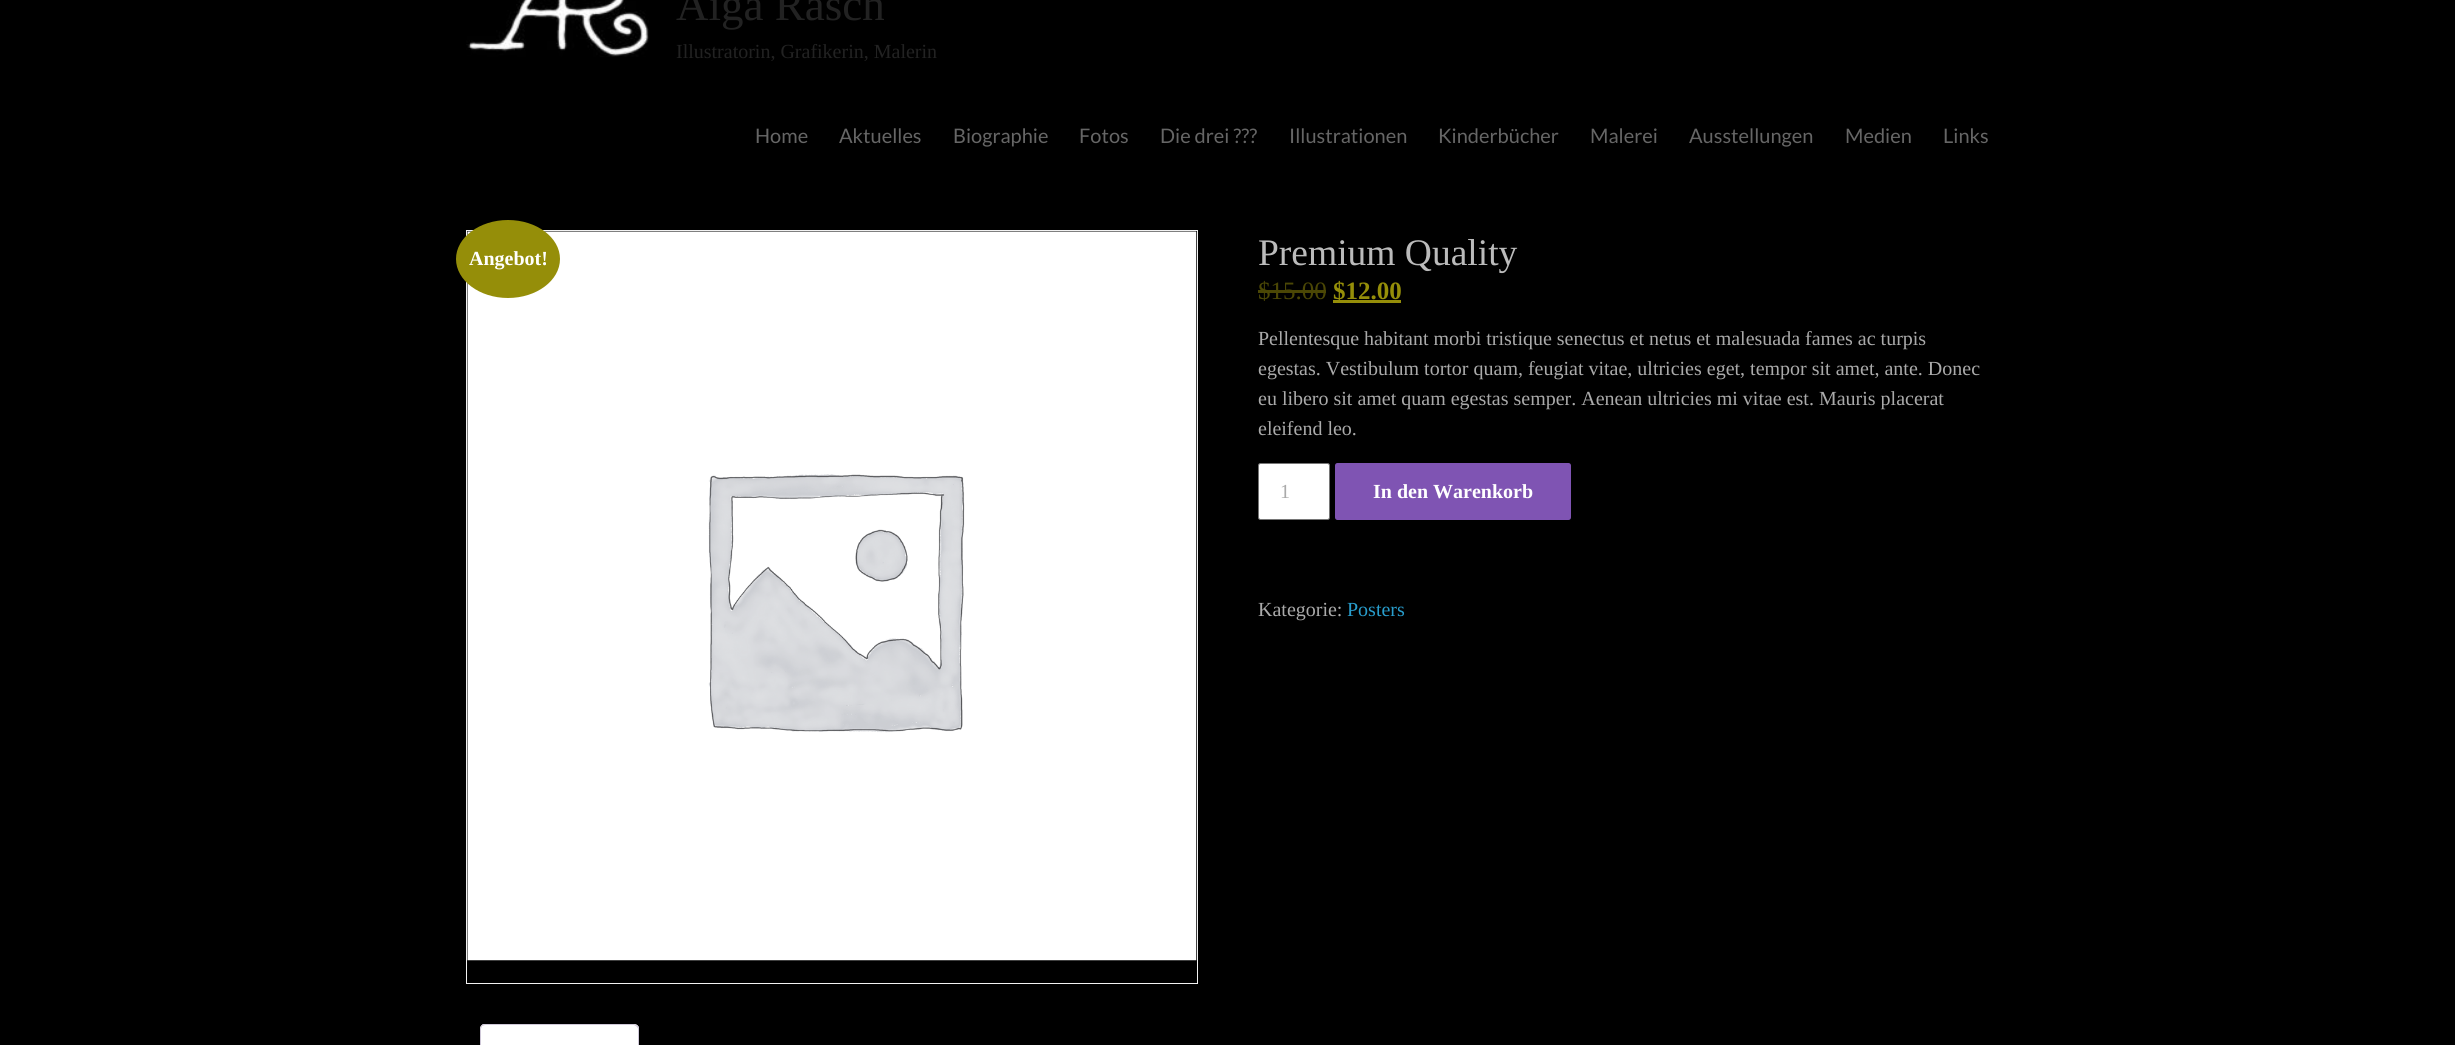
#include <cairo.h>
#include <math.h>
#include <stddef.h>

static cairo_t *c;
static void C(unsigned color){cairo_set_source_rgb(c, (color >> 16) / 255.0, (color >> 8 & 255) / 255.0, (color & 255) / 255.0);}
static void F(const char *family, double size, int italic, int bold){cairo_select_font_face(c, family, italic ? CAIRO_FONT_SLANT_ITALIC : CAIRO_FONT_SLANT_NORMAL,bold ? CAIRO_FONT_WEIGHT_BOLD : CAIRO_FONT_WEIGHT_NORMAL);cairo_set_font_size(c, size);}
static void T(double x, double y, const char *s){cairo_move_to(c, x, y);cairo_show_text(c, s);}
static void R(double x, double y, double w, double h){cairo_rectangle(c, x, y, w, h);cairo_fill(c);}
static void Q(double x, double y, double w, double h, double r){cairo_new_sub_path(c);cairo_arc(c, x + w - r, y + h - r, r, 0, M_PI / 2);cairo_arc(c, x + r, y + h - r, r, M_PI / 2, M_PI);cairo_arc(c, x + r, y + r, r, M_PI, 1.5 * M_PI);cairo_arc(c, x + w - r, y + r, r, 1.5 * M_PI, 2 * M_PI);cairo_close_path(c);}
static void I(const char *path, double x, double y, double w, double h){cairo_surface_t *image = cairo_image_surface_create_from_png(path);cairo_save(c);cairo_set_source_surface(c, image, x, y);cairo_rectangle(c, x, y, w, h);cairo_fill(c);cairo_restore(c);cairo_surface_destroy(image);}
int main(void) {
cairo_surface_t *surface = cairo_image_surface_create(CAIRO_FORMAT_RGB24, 2455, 1045);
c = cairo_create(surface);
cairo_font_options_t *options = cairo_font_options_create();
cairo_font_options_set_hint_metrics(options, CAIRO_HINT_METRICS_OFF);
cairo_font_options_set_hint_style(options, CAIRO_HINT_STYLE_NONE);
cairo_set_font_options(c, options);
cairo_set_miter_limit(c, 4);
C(0x000000);
cairo_paint(c);
I("1.png",466,0,183,57);
F("Liberation Serif",45,0,0);
C(0x222222);
T(676,20,"Aiga Rasch");
F("Liberation Serif",20,0,0);
T(676,58,"Illustratorin, Grafikerin, Malerin");
F("Lato",20,0,0);
C(0x666666);
T(755,143,"Home");
T(839,143,"Aktuelles");
T(953,143,"Biographie");
T(1079,143,"Fotos");
T(1160,143,"Die drei ?\077?");
T(1289,143,"Illustrationen");
T(1438,143,"Kinderbücher");
T(1590,143,"Malerei");
T(1689,143,"Ausstellungen");
T(1845,143,"Medien");
T(1943,143,"Links");
cairo_rectangle(c,466.5,230.5,731,753);
C(0xf2f2f2);
cairo_set_line_width(c,1);
cairo_stroke(c);
I("2.png",467,231,730,730);
F("Liberation Serif",37.5,0,0);
C(0xbbbbbb);
T(1258,265,"Premium Quality");
F("Liberation Serif",25,0,0);
C(0x4b4705);
T(1258,299,"$15.00");
R(1258,290,68,3);
C(0x958e09);
R(1333,300,68,3);
F("Liberation Serif",25,0,1);
T(1333,299,"$12.00");
F("Liberation Serif",20,0,0);
C(0xaaaaaa);
T(1258,345,"Pellentesque habitant morbi tristique senectus et netus et malesuada fames ac turpis");
T(1258,375,"egestas. Vestibulum tortor quam, feugiat vitae, ultricies eget, tempor sit amet, ante. Donec");
T(1258,405,"eu libero sit amet quam egestas semper. Aenean ultricies mi vitae est. Mauris placerat");
T(1258,435,"eleifend leo.");
C(0xffffff);
Q(1258.5,463.5,71,56,2);
cairo_fill_preserve(c);
C(0x767676);
cairo_stroke(c);
C(0xaaaaaa);
T(1280,498,"1");
C(0x7f54b3);
Q(1335,463,236,57,2.5);
cairo_fill(c);
F("Liberation Serif",20,0,1);
C(0xffffff);
T(1373,498,"In den Warenkorb");
F("Liberation Serif",20,0,0);
C(0xaaaaaa);
T(1258,616,"Kategorie:");
C(0x289dcc);
T(1347,616,"Posters");
C(0x958e09);
cairo_new_path(c);
cairo_move_to(c,508,220);
cairo_curve_to(c,536.5,220,560,237.5,560,259);
cairo_curve_to(c,560,280.5,536.5,298,508,298);
cairo_curve_to(c,479.5,298,456,280.5,456,259);
cairo_curve_to(c,456,237.5,479.5,220,508,220);
cairo_close_path(c);
cairo_fill(c);
F("Liberation Serif",20,0,1);
C(0xffffff);
T(469,265,"Angebot!");
cairo_new_path(c);
cairo_move_to(c,485,1024);
cairo_line_to(c,634,1024);
cairo_curve_to(c,637,1024,639,1026,639,1029);
cairo_line_to(c,639,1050);
cairo_line_to(c,480,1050);
cairo_line_to(c,480,1029);
cairo_curve_to(c,480,1026,482,1024,485,1024);
cairo_close_path(c);
cairo_fill(c);
C(0xcfc8d8);
cairo_new_path(c);
cairo_move_to(c,485,1024);
cairo_curve_to(c,484,1024,482,1024,482,1025);
cairo_line_to(c,482,1026);
cairo_line_to(c,485,1025);
cairo_line_to(c,634,1025);
cairo_line_to(c,636,1026);
cairo_line_to(c,637,1025);
cairo_line_to(c,634,1024);
cairo_close_path(c);
cairo_fill(c);
cairo_new_path(c);
cairo_move_to(c,637,1025);
cairo_line_to(c,639,1027);
cairo_line_to(c,639,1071);
cairo_line_to(c,638,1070);
cairo_line_to(c,638,1029);
cairo_curve_to(c,638,1028,637,1027,636,1026);
cairo_close_path(c);
cairo_fill(c);
cairo_new_path(c);
cairo_move_to(c,480,1029);
cairo_line_to(c,480,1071);
cairo_line_to(c,481,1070);
cairo_line_to(c,481,1029);
cairo_curve_to(c,481,1028,482,1027,482,1026);
cairo_line_to(c,482,1025);
cairo_curve_to(c,481,1026,480,1027,480,1029);
cairo_close_path(c);
cairo_fill(c);
cairo_surface_write_to_png(surface, "o.png");
cairo_font_options_destroy(options);
cairo_destroy(c);
cairo_surface_destroy(surface);
return 0;
}
